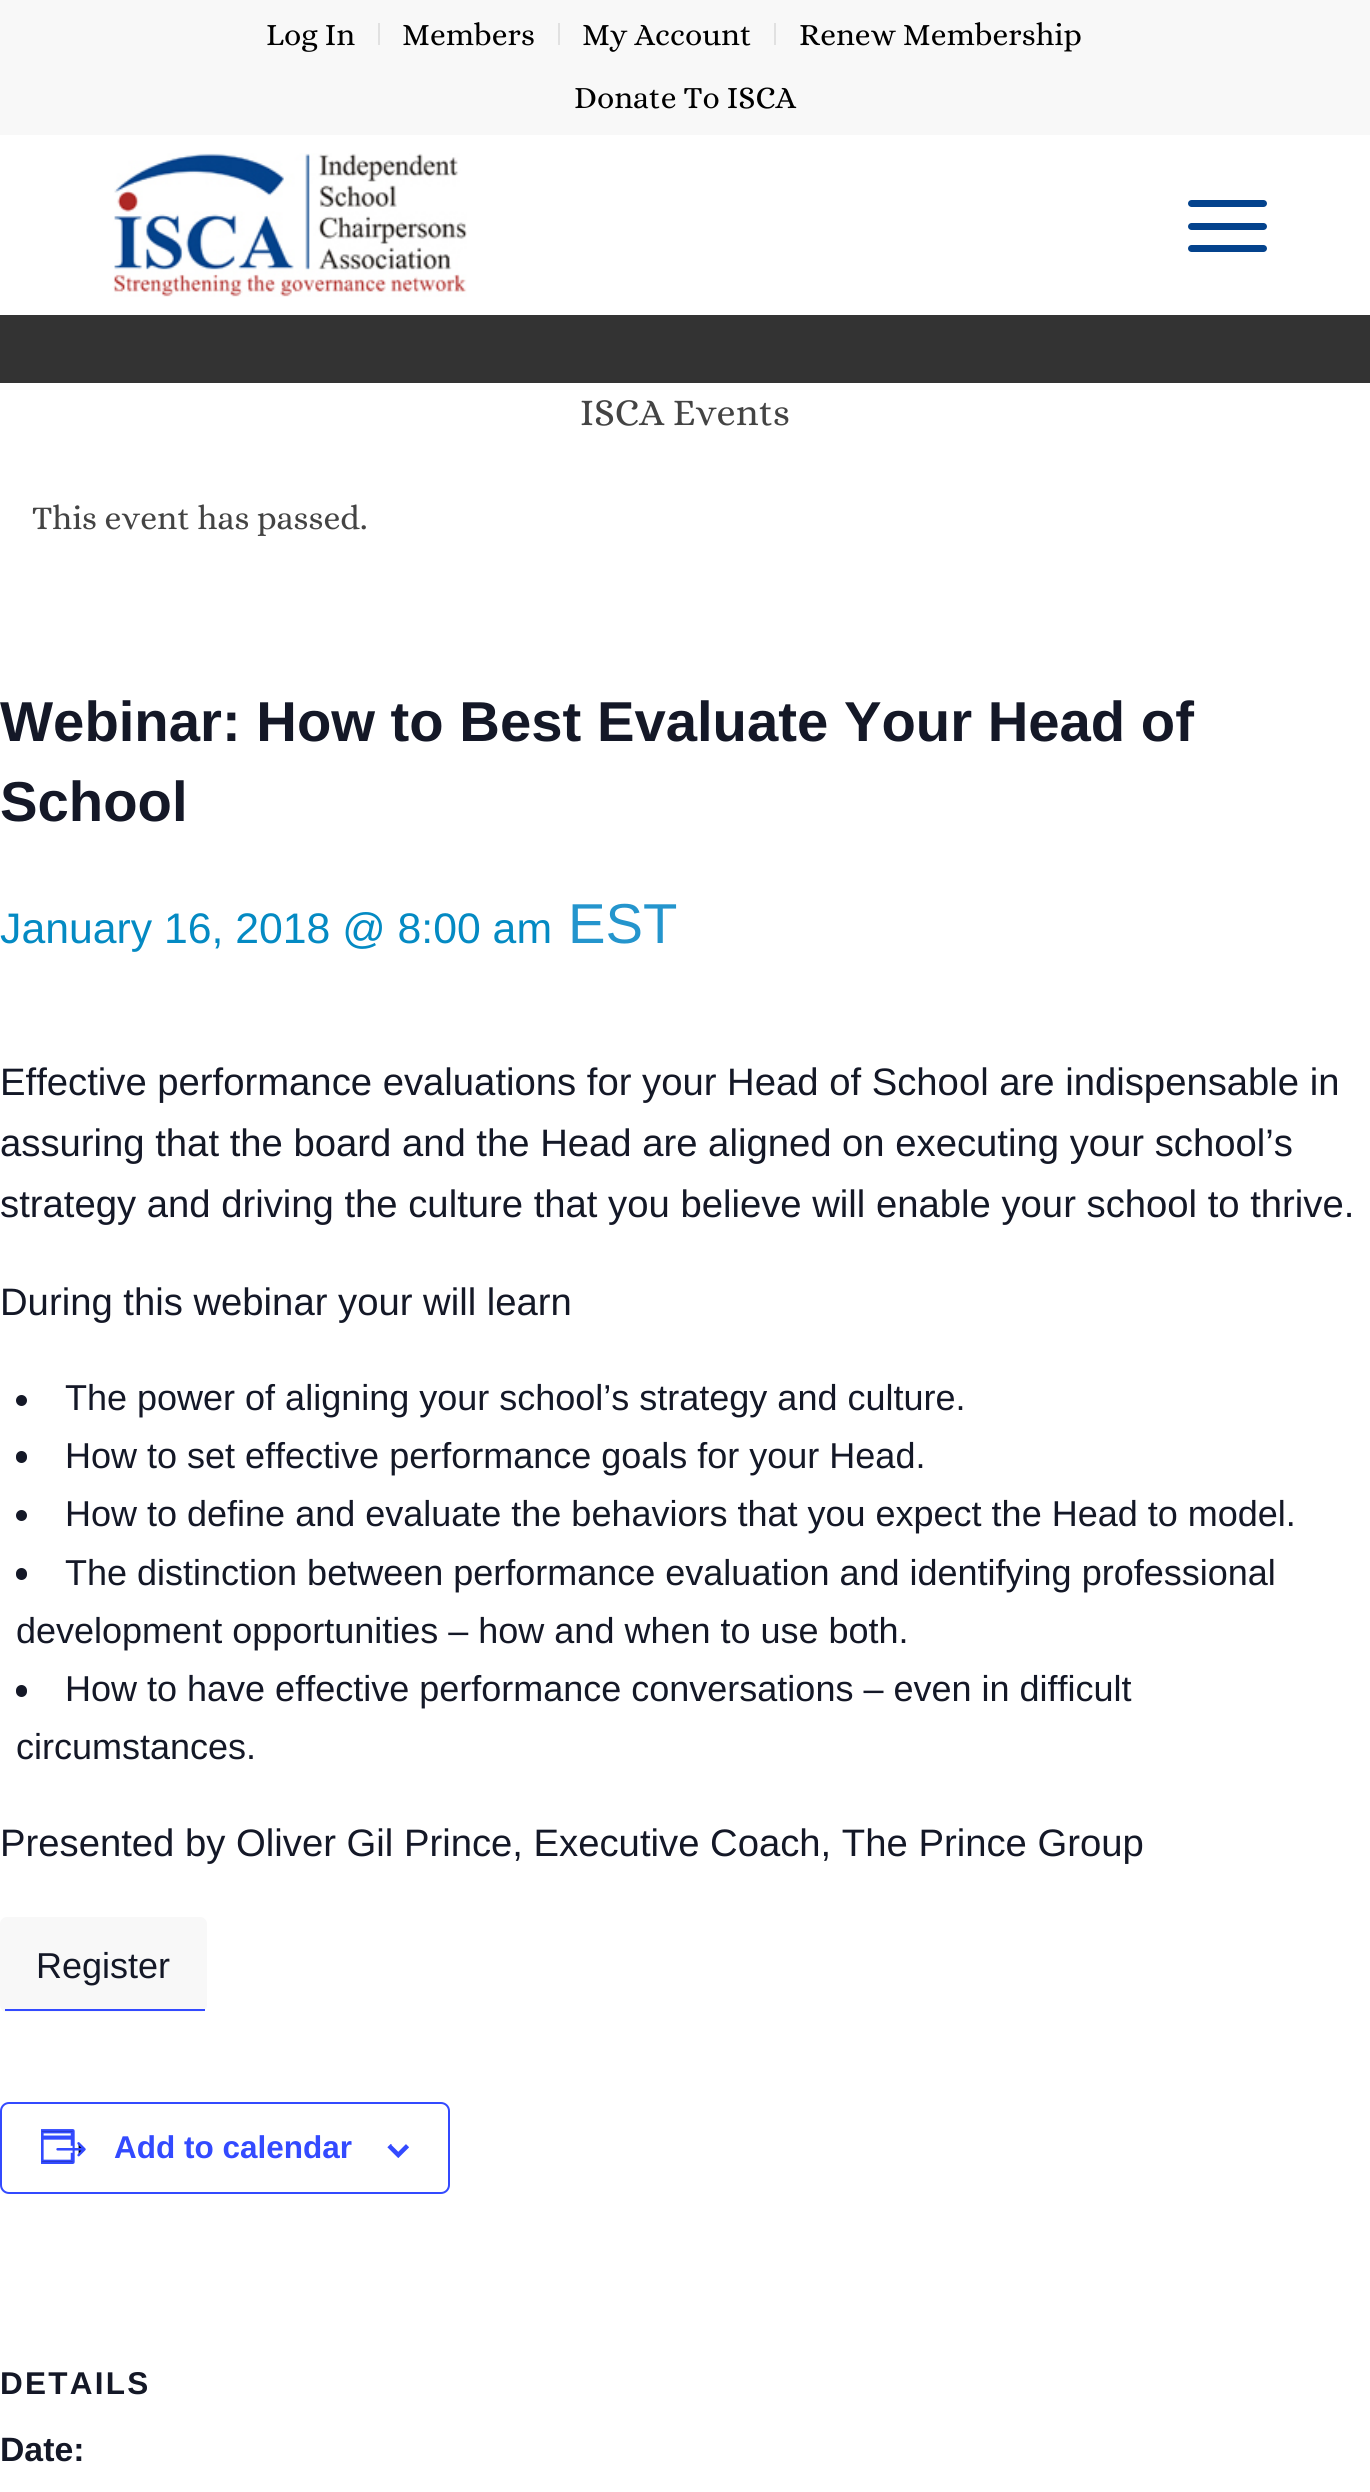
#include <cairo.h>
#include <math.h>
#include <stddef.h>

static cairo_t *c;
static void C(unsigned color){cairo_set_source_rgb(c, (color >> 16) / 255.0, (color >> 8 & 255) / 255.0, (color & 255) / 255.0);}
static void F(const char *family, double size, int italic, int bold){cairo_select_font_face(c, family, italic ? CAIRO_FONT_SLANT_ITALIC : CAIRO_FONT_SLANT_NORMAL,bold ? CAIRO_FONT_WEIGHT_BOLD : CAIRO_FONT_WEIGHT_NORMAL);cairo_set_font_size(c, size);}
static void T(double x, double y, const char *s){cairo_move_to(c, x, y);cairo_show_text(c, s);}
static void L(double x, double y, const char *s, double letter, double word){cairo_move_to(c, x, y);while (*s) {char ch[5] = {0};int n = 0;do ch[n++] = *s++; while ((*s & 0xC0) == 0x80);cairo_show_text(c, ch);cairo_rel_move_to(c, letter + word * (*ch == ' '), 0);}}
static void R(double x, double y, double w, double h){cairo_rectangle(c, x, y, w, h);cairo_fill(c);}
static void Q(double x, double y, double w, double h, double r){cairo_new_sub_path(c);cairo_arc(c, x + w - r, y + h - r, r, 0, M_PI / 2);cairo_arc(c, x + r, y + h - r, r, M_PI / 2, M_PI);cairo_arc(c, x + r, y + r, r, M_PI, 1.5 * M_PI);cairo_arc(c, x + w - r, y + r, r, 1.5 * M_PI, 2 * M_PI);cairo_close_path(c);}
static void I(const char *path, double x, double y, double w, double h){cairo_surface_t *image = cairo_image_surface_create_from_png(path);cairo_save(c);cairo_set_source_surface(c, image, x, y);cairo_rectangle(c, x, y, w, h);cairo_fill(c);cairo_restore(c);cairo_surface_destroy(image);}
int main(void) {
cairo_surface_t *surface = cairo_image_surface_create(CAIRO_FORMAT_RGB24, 1370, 2492);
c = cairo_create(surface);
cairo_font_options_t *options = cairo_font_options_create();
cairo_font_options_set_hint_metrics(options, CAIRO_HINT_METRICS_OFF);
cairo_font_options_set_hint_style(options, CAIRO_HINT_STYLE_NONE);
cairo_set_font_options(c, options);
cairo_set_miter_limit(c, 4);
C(0x333333);
cairo_paint(c);
C(0xf8f8f8);
R(0,0,1370,135);
C(0xe1e1e1);
R(378,23,2,22);
F("Alice",31.5,0,0);
C(0x000000);
T(266,45,"Log In");
C(0xe1e1e1);
R(558,23,2,22);
C(0x000000);
T(402,45,"Members");
C(0xe1e1e1);
R(774,23,2,22);
C(0x000000);
T(582,45,"My Account");
T(799,45,"Renew Membership");
T(574,108,"Donate To ISCA");
C(0xffffff);
R(0,135,1370,180);
I("1.png",113,153,354,144);
C(0x04438d);
Q(1188,223,79,7,3.5);
cairo_fill(c);
Q(1188,200,79,7,3.5);
cairo_fill(c);
Q(1188,245,79,7,3.5);
cairo_fill(c);
C(0xffffff);
R(0,383,1370,2109);
F("Alice",38.25,0,0);
C(0x444444);
T(580,425,"ISCA Events");
F("Alice",33.75,0,0);
T(32,529,"This event has passed.");
F("Liberation Sans",56.25,0,1);
C(0x141827);
T(0,741,"Webinar: How to Best Evaluate Your Head of");
T(0,821,"School");
F("Liberation Sans",42.75,0,0);
C(0x048ac3);
T(0,943,"January 16, 2018 @ 8:00 am");
F("Liberation Sans",56.25,0,0);
C(0x2495cd);
T(568,943,"EST");
F("Liberation Sans",38.25,0,0);
C(0x141827);
T(0,1095,"Effective performance evaluations for your Head of School are indispensable in");
T(0,1156,"assuring that the board and the Head are aligned on executing your school’s");
T(0,1217,"strategy and driving the culture that you believe will enable your school to thrive.");
T(0,1315,"During this webinar your will learn");
cairo_new_path(c);
cairo_arc(c,21.5,1400.5,5.5,0,2 * M_PI);
cairo_fill(c);
F("Liberation Sans",36,0,0);
T(65,1410,"The power of aligning your school’s strategy and culture.");
Q(16,1451,11,12,5.5);
cairo_fill(c);
T(65,1468,"How to set effective performance goals for your Head.");
cairo_new_path(c);
cairo_arc(c,21.5,1515.5,5.5,0,2 * M_PI);
cairo_fill(c);
T(65,1526,"How to define and evaluate the behaviors that you expect the Head to model.");
Q(16,1568,11,12,5.5);
cairo_fill(c);
T(65,1585,"The distinction between performance evaluation and identifying professional");
T(16,1643,"development opportunities – how and when to use both.");
Q(16,1685,11,12,5.5);
cairo_fill(c);
T(65,1701,"How to have effective performance conversations – even in difficult");
T(16,1759,"circumstances.");
F("Liberation Sans",38.25,0,0);
T(0,1856,"Presented by Oliver Gil Prince, Executive Coach, The Prince Group");
C(0xf8f8f8);
Q(0,1917,207,95,7);
cairo_fill(c);
C(0x334aff);
R(5,2009,200,2);
F("Liberation Sans",36,0,0);
C(0x141827);
T(36,1978,"Register");
Q(1,2103,448,90,8);
C(0x334aff);
cairo_stroke(c);
I("2.png",41,2129,45,35);
F("Liberation Sans",31.5,0,1);
T(114,2158,"Add to calendar");
I("3.png",387,2144,22,14);
C(0x141827);
L(0,2394,"DETAILS",2.25,0);
F("Liberation Sans",33.75,0,1);
T(0,2461,"Date:");
cairo_surface_write_to_png(surface, "o.png");
cairo_font_options_destroy(options);
cairo_destroy(c);
cairo_surface_destroy(surface);
return 0;
}
